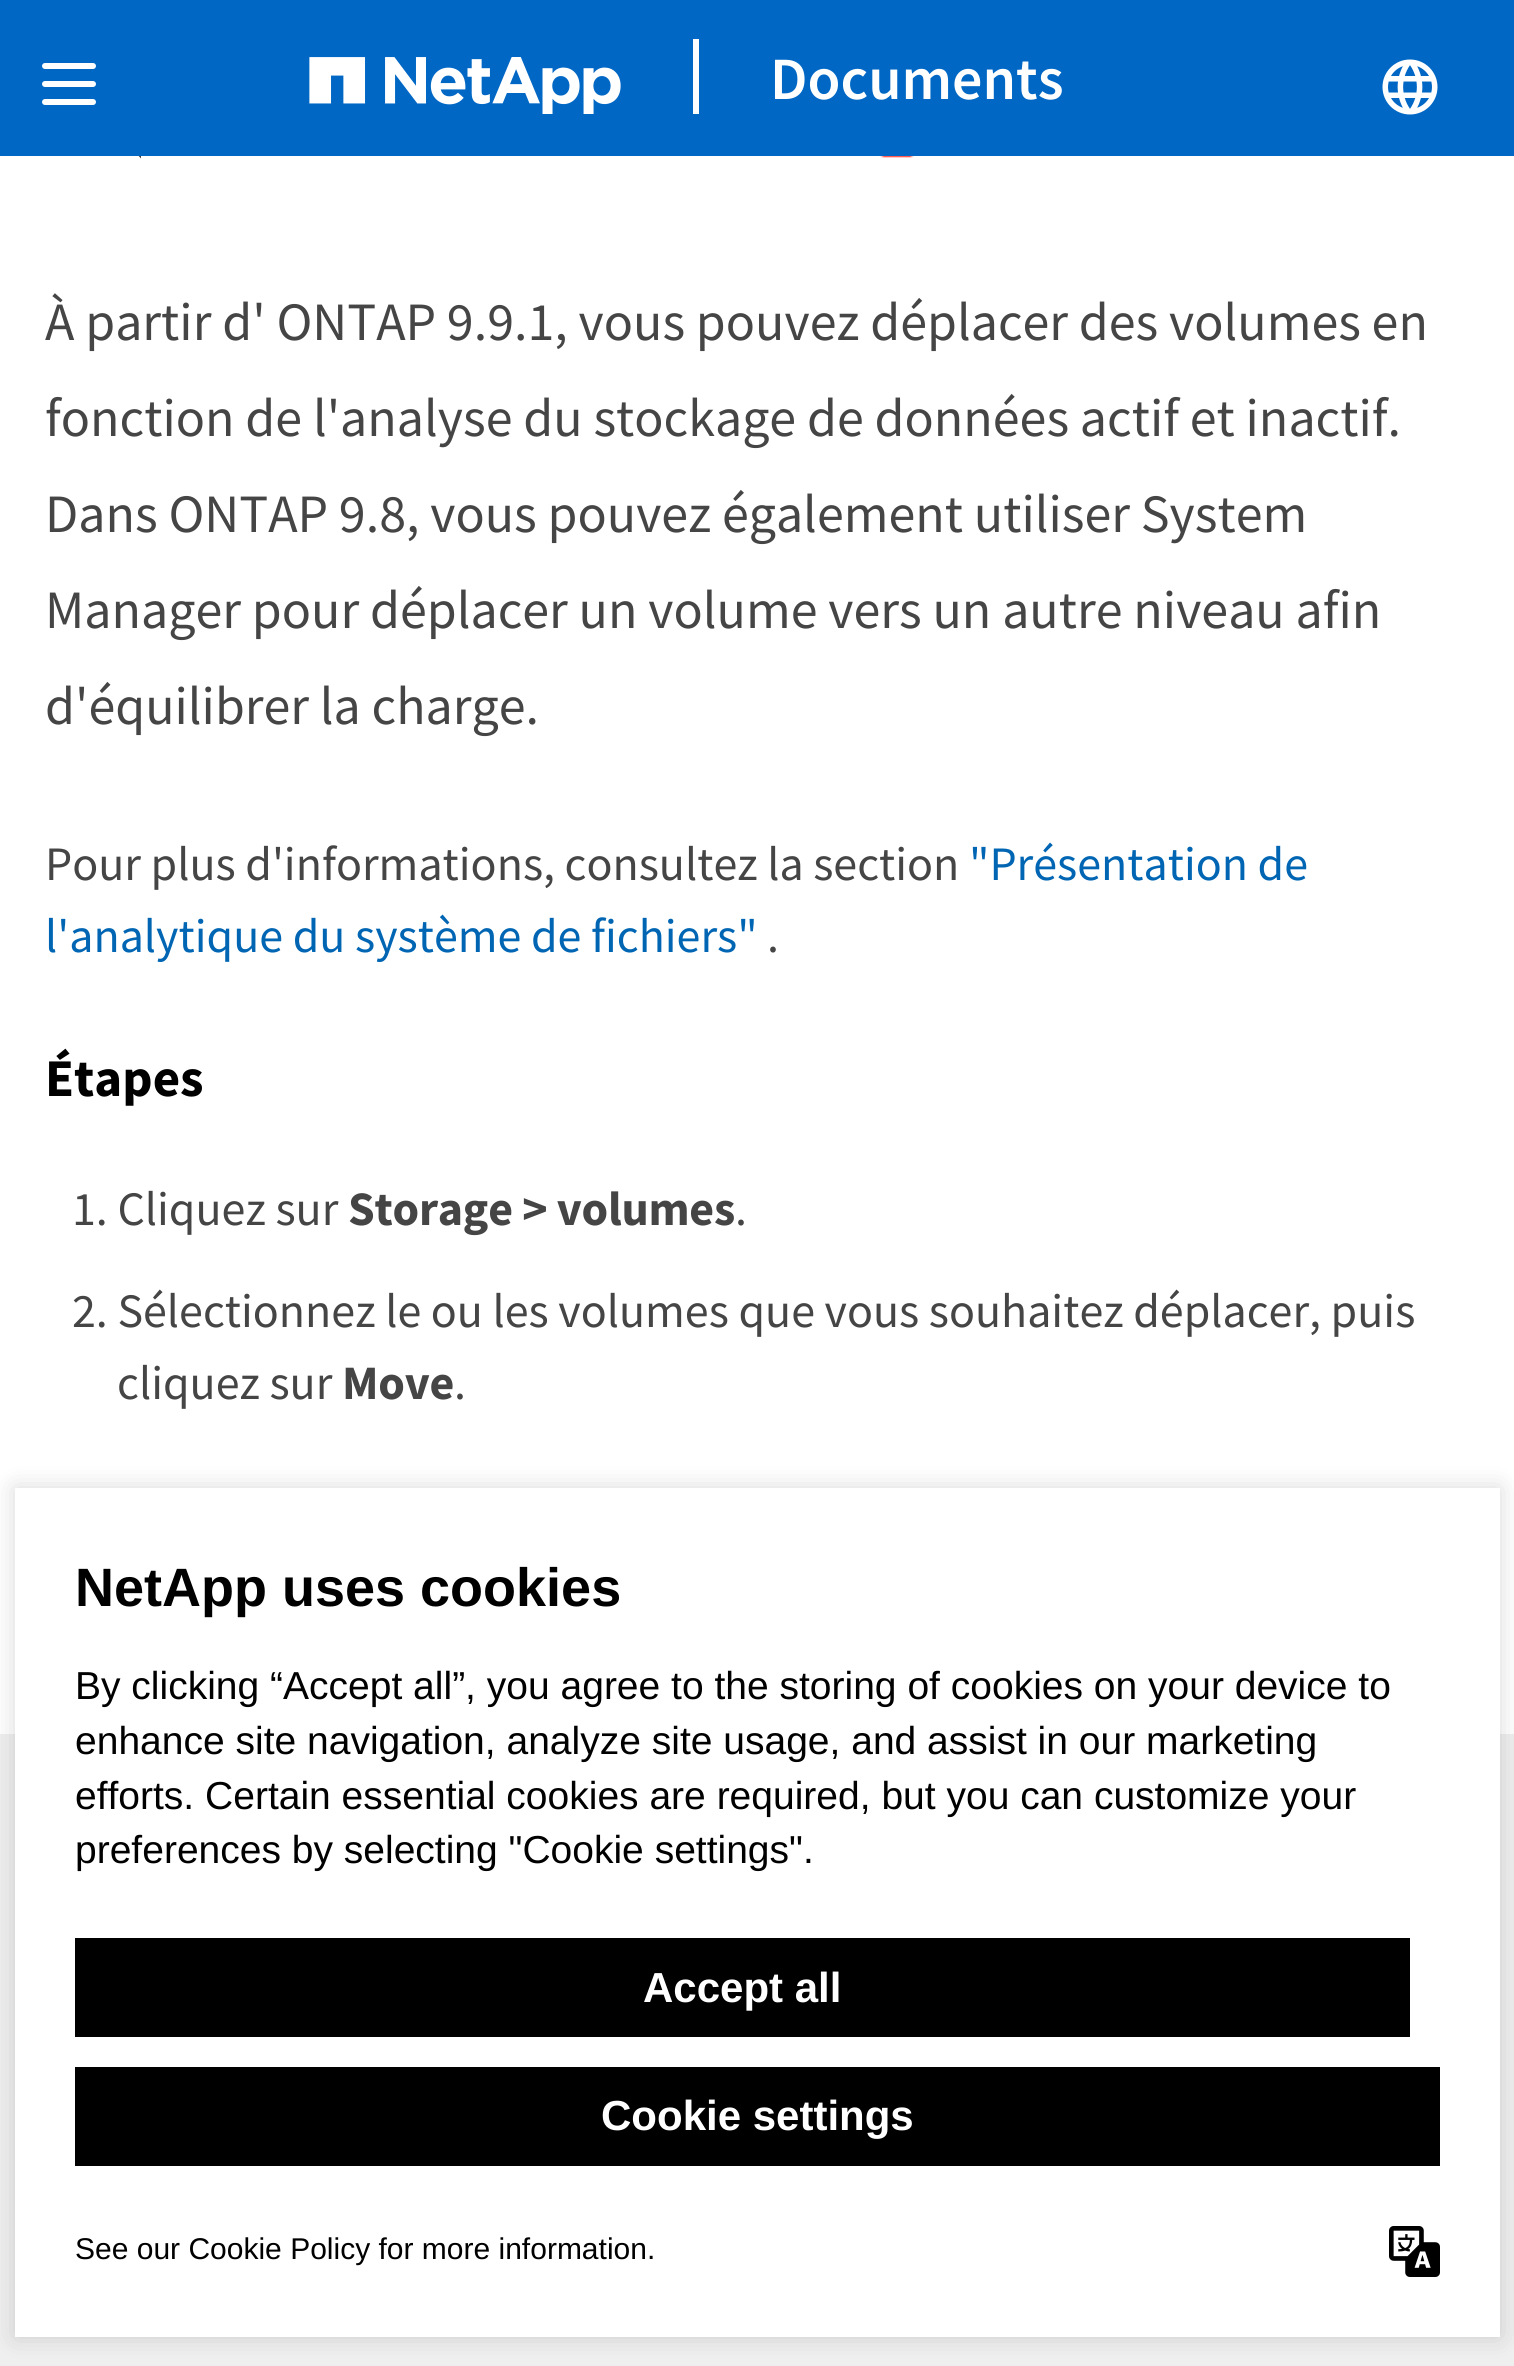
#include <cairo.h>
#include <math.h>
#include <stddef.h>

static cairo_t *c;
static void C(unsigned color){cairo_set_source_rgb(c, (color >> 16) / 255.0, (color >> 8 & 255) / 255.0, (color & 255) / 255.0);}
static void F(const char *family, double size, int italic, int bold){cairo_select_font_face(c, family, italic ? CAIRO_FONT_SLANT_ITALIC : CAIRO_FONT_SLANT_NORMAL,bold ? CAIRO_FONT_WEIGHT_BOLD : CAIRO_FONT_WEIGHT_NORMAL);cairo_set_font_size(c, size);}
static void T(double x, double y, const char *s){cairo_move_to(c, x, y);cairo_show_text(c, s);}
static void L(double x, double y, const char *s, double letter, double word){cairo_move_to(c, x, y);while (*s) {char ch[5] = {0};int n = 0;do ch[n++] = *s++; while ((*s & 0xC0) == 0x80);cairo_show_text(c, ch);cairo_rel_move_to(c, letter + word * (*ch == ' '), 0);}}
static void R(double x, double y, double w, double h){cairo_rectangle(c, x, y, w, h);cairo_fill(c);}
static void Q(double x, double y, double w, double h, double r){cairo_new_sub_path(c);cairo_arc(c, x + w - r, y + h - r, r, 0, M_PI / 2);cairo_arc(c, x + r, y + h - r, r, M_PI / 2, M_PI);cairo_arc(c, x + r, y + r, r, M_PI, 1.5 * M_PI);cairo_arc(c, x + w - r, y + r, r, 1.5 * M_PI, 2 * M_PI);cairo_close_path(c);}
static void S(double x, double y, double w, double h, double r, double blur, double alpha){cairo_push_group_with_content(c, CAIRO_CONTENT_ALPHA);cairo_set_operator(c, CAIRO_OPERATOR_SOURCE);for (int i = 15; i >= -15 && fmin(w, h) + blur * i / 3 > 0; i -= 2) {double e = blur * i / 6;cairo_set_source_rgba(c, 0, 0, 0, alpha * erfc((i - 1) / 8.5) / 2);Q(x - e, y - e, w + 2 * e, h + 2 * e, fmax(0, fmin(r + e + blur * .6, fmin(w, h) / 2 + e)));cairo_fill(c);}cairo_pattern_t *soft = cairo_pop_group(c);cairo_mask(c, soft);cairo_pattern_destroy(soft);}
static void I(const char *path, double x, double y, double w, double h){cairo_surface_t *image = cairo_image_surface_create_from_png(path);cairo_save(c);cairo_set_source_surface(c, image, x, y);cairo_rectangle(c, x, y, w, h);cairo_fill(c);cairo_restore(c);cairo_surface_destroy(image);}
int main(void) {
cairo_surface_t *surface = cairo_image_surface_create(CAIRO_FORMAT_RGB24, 1514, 2366);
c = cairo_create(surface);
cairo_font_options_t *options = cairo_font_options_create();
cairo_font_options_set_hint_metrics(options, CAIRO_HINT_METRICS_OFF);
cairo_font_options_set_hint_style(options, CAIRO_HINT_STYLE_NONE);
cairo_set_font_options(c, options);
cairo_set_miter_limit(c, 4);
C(0xffffff);
cairo_paint(c);
C(0x0067c5);
R(0,0,1514,156);
I("1.png",42,63,54,42);
I("2.png",309,57,312,57);
C(0xffffff);
R(693,39,6,75);
F("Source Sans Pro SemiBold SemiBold",60,0,0);
T(770,99,"Documents");
I("3.png",1382,59,56,56);
I("4.png",138,156,3,3);
I("5.png",880,156,34,2);
F("Source Sans Pro",54,0,0);
C(0x454545);
T(45,340,"À partir d' ONTAP 9.9.1, vous pouvez déplacer des volumes en");
T(45,436,"fonction de l'analyse du stockage de données actif et inactif.");
T(45,532,"Dans ONTAP 9.8, vous pouvez également utiliser System");
T(45,628,"Manager pour déplacer un volume vers un autre niveau afin");
T(45,724,"d'équilibrer la charge.");
F("Source Sans Pro",48,0,0);
T(45,880,"Pour plus d'informations, consultez la section");
C(0x0065b3);
T(969,880,"\"Présentation de");
T(45,952,"l'analytique du système de fichiers\"");
C(0x454545);
T(767,952,".");
F("Source Sans Pro",53,0,1);
C(0x000000);
T(45,1096,"Étapes");
F("Source Sans Pro",48,0,0);
C(0x454545);
T(72,1225,"1. Cliquez sur");
F("Source Sans Pro",48,0,1);
L(348,1225,"Storage > volumes",-.25,0);
F("Source Sans Pro",48,0,0);
T(735,1225,".");
T(72,1327,"2. Sélectionnez le ou les volumes que vous souhaitez déplacer, puis");
T(117,1399,"cliquez sur");
F("Source Sans Pro",48,0,1);
L(342,1399,"Move",-.25,0);
F("Source Sans Pro",48,0,0);
T(454,1399,".");
C(0xefefef);
R(0,1734,1514,632);
C(0x000000);
S(15,1488,1485,849,0,12,.15);
C(0xffffff);
R(15,1488,1485,849);
F("Liberation Sans",54,0,1);
C(0x000000);
T(75,1606,"NetApp uses cookies");
F("Liberation Sans",39,0,0);
T(75,1699,"By clicking “Accept all”, you agree to the storing of cookies on your device to");
T(75,1754,"enhance site navigation, analyze site usage, and assist in our marketing");
T(75,1809,"efforts. Certain essential cookies are required, but you can customize your");
T(75,1863,"preferences by selecting \"Cookie settings\".");
R(75,1938,1335,99);
F("Liberation Sans",42,0,1);
C(0xffffff);
T(643,2002,"Accept all");
C(0x000000);
R(75,2067,1365,99);
C(0xffffff);
T(601,2130,"Cookie settings");
F("Liberation Sans",30,0,0);
C(0x000000);
T(75,2259,"See our Cookie Policy for more information.");
I("6.png",1389,2226,51,51);
cairo_surface_write_to_png(surface, "o.png");
cairo_font_options_destroy(options);
cairo_destroy(c);
cairo_surface_destroy(surface);
return 0;
}
